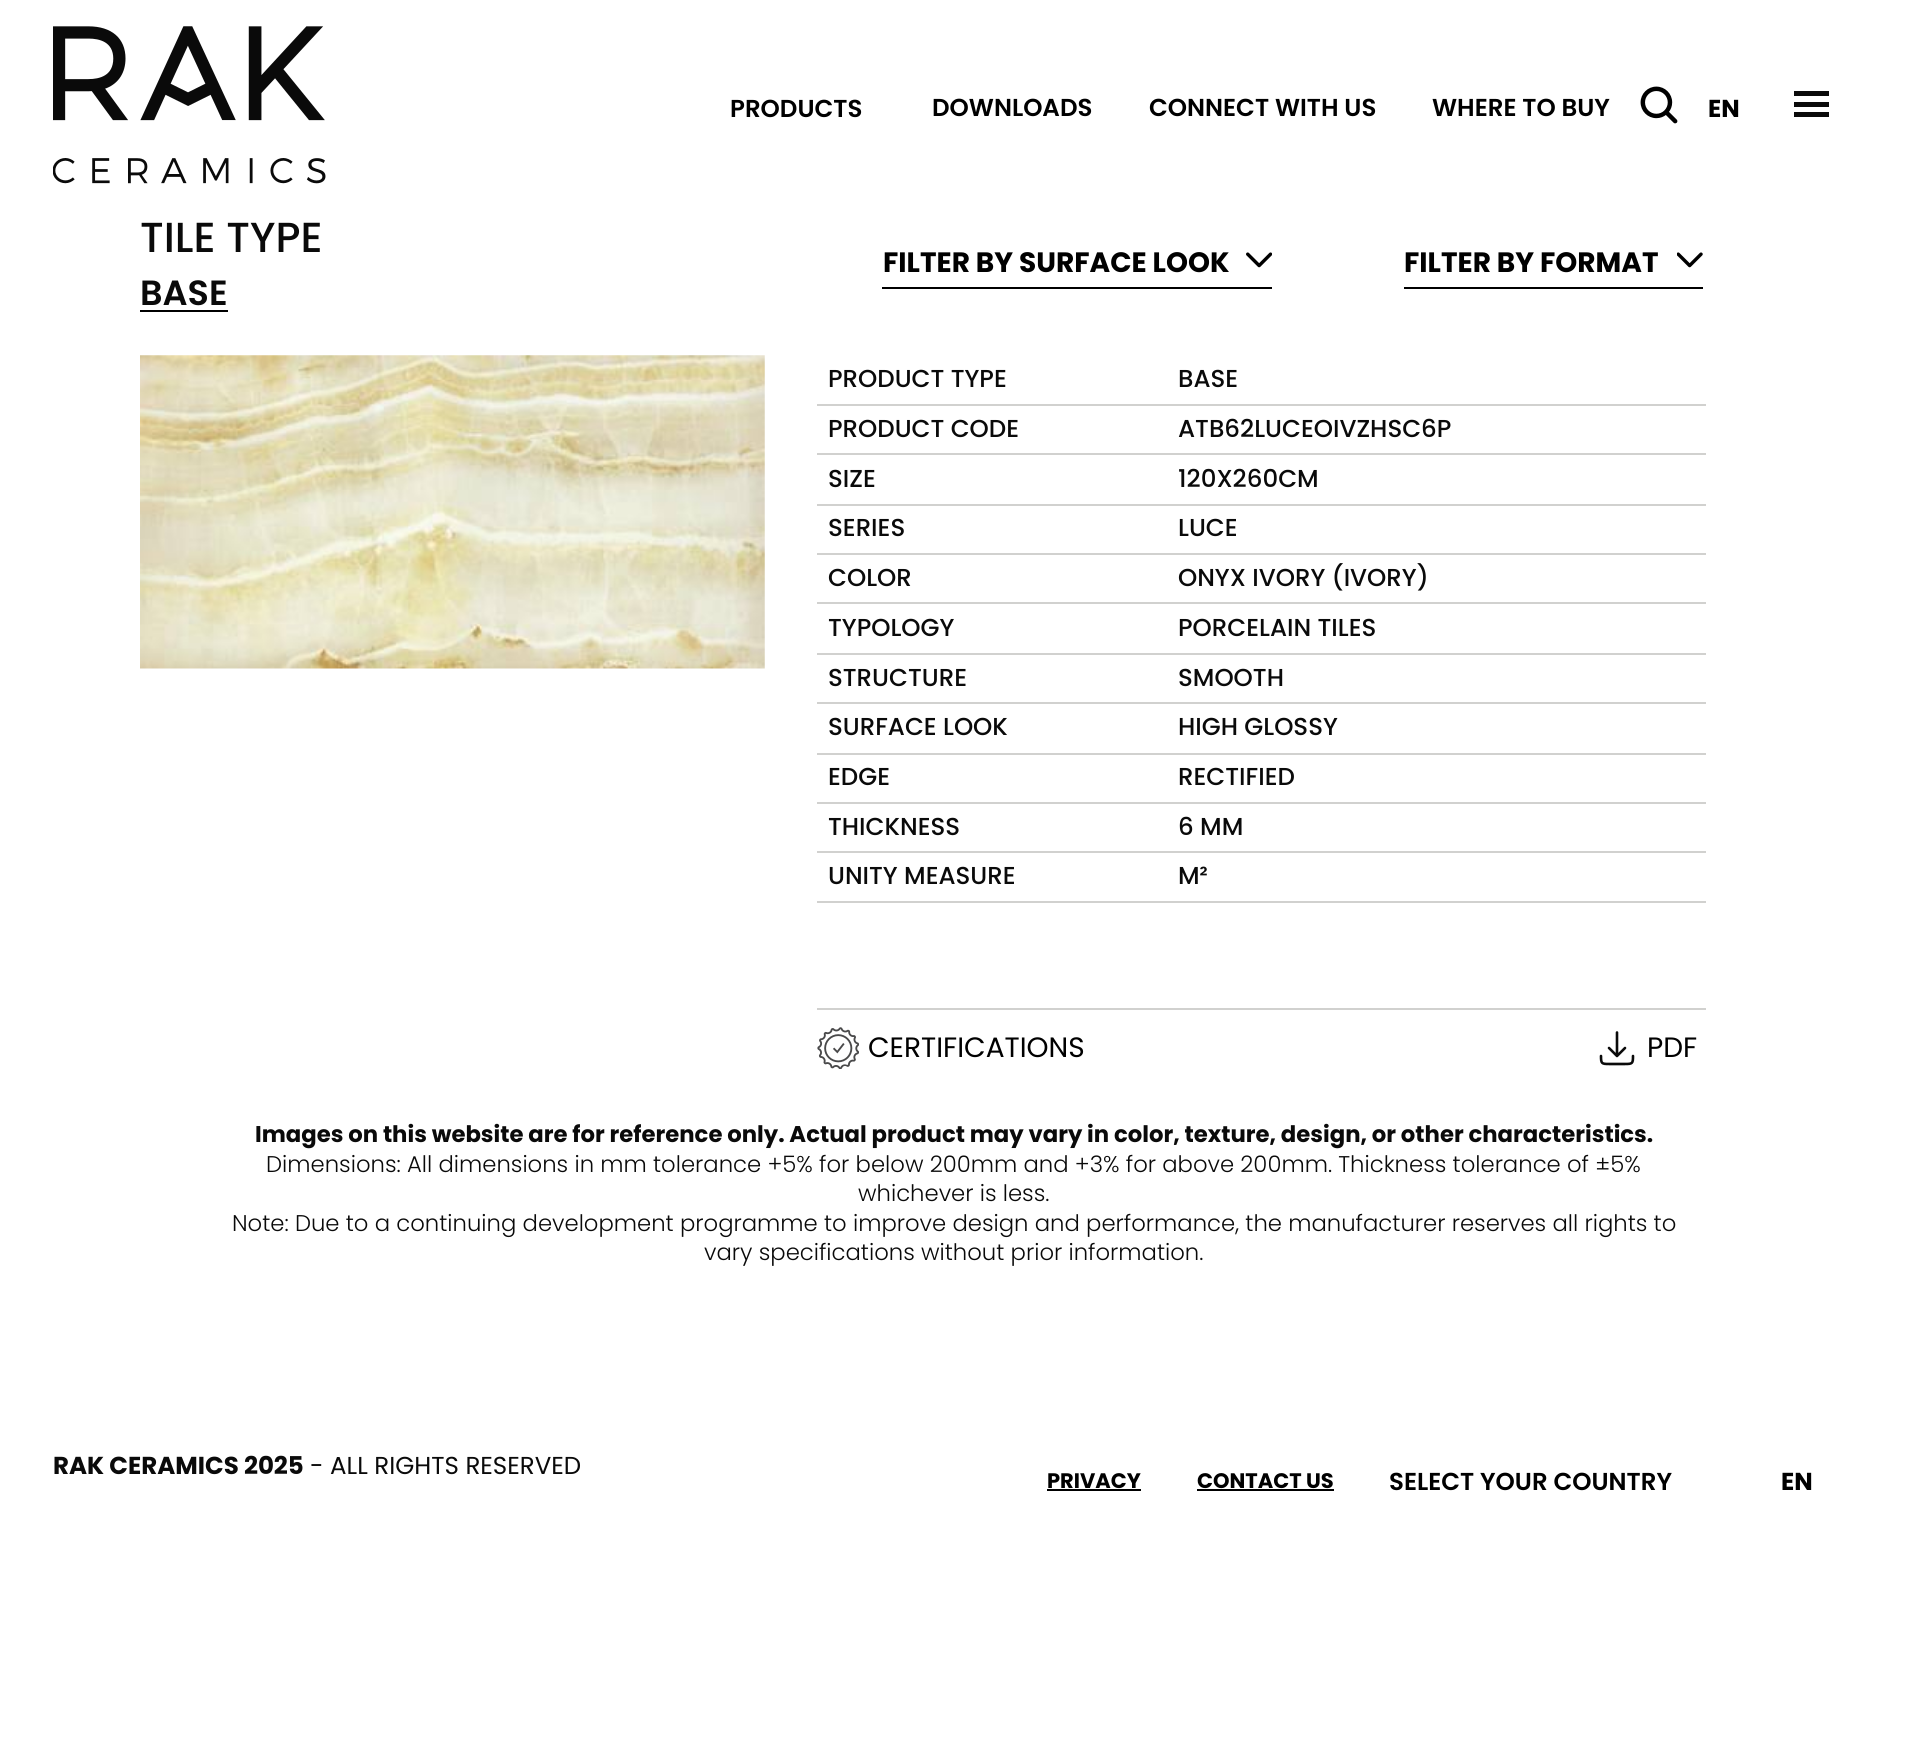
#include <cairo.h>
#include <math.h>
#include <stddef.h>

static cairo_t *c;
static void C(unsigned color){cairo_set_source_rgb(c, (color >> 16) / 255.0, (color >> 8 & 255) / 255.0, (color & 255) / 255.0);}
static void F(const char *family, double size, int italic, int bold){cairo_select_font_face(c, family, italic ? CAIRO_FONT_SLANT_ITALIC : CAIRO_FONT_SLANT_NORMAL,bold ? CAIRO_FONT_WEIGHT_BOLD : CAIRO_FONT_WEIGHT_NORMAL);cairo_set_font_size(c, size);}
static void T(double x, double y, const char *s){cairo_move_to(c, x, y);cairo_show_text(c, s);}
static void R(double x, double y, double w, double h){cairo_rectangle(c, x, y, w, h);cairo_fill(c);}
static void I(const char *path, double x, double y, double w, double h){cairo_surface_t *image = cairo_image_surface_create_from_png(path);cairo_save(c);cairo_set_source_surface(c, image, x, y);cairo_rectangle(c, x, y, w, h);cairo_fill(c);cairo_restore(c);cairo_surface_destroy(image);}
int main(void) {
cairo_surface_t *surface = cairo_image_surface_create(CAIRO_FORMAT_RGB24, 1906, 1761);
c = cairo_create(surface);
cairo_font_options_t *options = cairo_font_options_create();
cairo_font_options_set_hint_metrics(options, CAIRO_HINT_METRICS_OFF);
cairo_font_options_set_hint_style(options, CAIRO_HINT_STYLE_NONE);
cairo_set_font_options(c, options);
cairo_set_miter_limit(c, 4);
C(0xffffff);
cairo_paint(c);
I("1.png",53,26,273,158);
F("Poppins SemiBold",24.5,0,0);
C(0x000000);
T(730,117,"PRODUCTS");
T(932,116,"DOWNLOADS");
T(1149,116,"CONNECT WITH US");
T(1432,116,"WHERE TO BUY");
I("2.png",1640,86,38,38);
F("Poppins",24.5,0,1);
T(1708,117,"EN");
C(0x0a0a0a);
R(1794,91,35,5);
R(1794,102,35,5);
R(1794,112,35,5);
F("Poppins Medium",42,0,0);
T(140,252,"TILE TYPE");
C(0x000000);
R(140,310,88,2);
F("Poppins SemiBold",35,0,0);
C(0x0a0a0a);
T(140,305,"BASE");
C(0x000000);
R(882,287,390,2);
F("Poppins",28,0,1);
T(883,272,"FILTER BY SURFACE LOOK");
I("3.png",1246,252,26,16);
R(1404,287,299,2);
T(1404,272,"FILTER BY FORMAT");
I("4.png",1677,252,26,16);
I("5.png",140,355,625,314);
C(0xd1d1cf);
R(817,404,889,2);
F("Poppins Medium",24.5,0,0);
C(0x0a0a0a);
T(828,387,"PRODUCT TYPE");
T(1178,387,"BASE");
C(0xd1d1cf);
R(817,453,889,2);
C(0x0a0a0a);
T(828,437,"PRODUCT CODE");
T(1178,437,"ATB62LUCEOIVZHSC6P");
C(0xd1d1cf);
R(817,504,889,2);
C(0x0a0a0a);
T(828,487,"SIZE");
T(1178,487,"120X260CM");
C(0xd1d1cf);
R(817,553,889,2);
C(0x0a0a0a);
T(828,536,"SERIES");
T(1178,536,"LUCE");
C(0xd1d1cf);
R(817,602,889,2);
C(0x0a0a0a);
T(828,586,"COLOR");
T(1178,586,"ONYX IVORY (IVORY)");
C(0xd1d1cf);
R(817,653,889,2);
C(0x0a0a0a);
T(828,636,"TYPOLOGY");
T(1178,636,"PORCELAIN TILES");
C(0xd1d1cf);
R(817,702,889,2);
C(0x0a0a0a);
T(828,686,"STRUCTURE");
T(1178,686,"SMOOTH");
C(0xd1d1cf);
R(817,753,889,2);
C(0x0a0a0a);
T(828,735,"SURFACE LOOK");
T(1178,735,"HIGH GLOSSY");
C(0xd1d1cf);
R(817,802,889,2);
C(0x0a0a0a);
T(828,785,"EDGE");
T(1178,785,"RECTIFIED");
C(0xd1d1cf);
R(817,851,889,2);
C(0x0a0a0a);
T(828,835,"THICKNESS");
T(1178,835,"6 MM");
C(0xd1d1cf);
R(817,901,889,2);
C(0x0a0a0a);
T(828,884,"UNITY MEASURE");
T(1178,884,"M²");
C(0xd1d1cf);
R(817,1008,889,2);
I("6.png",817,1027,42,42);
F("Poppins",28,0,0);
C(0x000000);
T(868,1057,"CERTIFICATIONS");
cairo_new_path(c);
cairo_move_to(c,1601,1056);
cairo_curve_to(c,1601,1063.5,1601.5,1064,1609,1064);
cairo_line_to(c,1625,1064);
cairo_curve_to(c,1632.5,1064,1633,1063.5,1633,1056);
cairo_move_to(c,1625,1048);
cairo_line_to(c,1617,1056);
cairo_move_to(c,1617,1056);
cairo_line_to(c,1609,1048);
cairo_move_to(c,1617,1056);
cairo_line_to(c,1617,1032.5);
C(0x0a0a0a);
cairo_set_line_width(c,2.6);
cairo_set_line_cap(c,CAIRO_LINE_CAP_ROUND);
cairo_set_line_join(c,CAIRO_LINE_JOIN_ROUND);
cairo_stroke(c);
C(0x000000);
T(1647,1057,"PDF");
F("Poppins",22.75,0,1);
C(0x0a0a0a);
T(255,1142,"Images on this website are for reference only. Actual product may vary in color, texture, design, or other characteristics.");
F("Poppins Light",22.75,0,0);
T(266,1172,"Dimensions: All dimensions in mm tolerance +5% for below 200mm and +3% for above 200mm. Thickness tolerance of ±5%");
T(858,1201,"whichever is less.");
T(232,1231,"Note: Due to a continuing development programme to improve design and performance, the manufacturer reserves all rights to");
T(704,1260,"vary specifications without prior information.");
F("Poppins",24.5,0,1);
T(53,1474,"RAK CERAMICS 2025");
F("Poppins",24.5,0,0);
T(310,1474,"- ALL RIGHTS RESERVED");
F("Poppins",21,0,1);
C(0x000000);
T(1047,1488,"PRIVACY");
R(1047,1489,94,2);
T(1197,1488,"CONTACT US");
R(1197,1489,137,2);
F("Poppins SemiBold",24.5,0,0);
T(1389,1490,"SELECT YOUR COUNTRY");
F("Poppins",24.5,0,1);
T(1781,1490,"EN");
cairo_surface_write_to_png(surface, "o.png");
cairo_font_options_destroy(options);
cairo_destroy(c);
cairo_surface_destroy(surface);
return 0;
}
